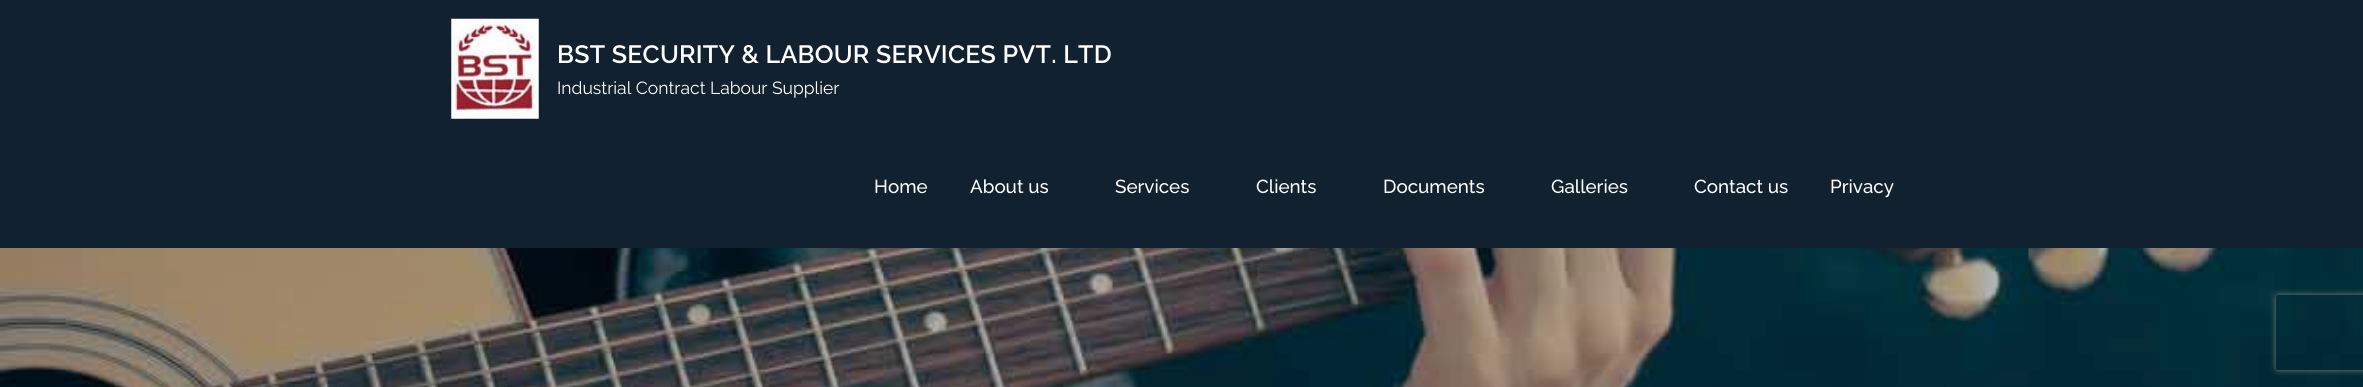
#include <cairo.h>
#include <math.h>
#include <stddef.h>

static cairo_t *c;
static void C(unsigned color){cairo_set_source_rgb(c, (color >> 16) / 255.0, (color >> 8 & 255) / 255.0, (color & 255) / 255.0);}
static void F(const char *family, double size, int italic, int bold){cairo_select_font_face(c, family, italic ? CAIRO_FONT_SLANT_ITALIC : CAIRO_FONT_SLANT_NORMAL,bold ? CAIRO_FONT_WEIGHT_BOLD : CAIRO_FONT_WEIGHT_NORMAL);cairo_set_font_size(c, size);}
static void T(double x, double y, const char *s){cairo_move_to(c, x, y);cairo_show_text(c, s);}
static void L(double x, double y, const char *s, double letter, double word){cairo_move_to(c, x, y);while (*s) {char ch[5] = {0};int n = 0;do ch[n++] = *s++; while ((*s & 0xC0) == 0x80);cairo_show_text(c, ch);cairo_rel_move_to(c, letter + word * (*ch == ' '), 0);}}
static void R(double x, double y, double w, double h){cairo_rectangle(c, x, y, w, h);cairo_fill(c);}
static void Q(double x, double y, double w, double h, double r){cairo_new_sub_path(c);cairo_arc(c, x + w - r, y + h - r, r, 0, M_PI / 2);cairo_arc(c, x + r, y + h - r, r, M_PI / 2, M_PI);cairo_arc(c, x + r, y + r, r, M_PI, 1.5 * M_PI);cairo_arc(c, x + w - r, y + r, r, 1.5 * M_PI, 2 * M_PI);cairo_close_path(c);}
static void S(double x, double y, double w, double h, double r, double blur, double alpha){cairo_push_group_with_content(c, CAIRO_CONTENT_ALPHA);cairo_set_operator(c, CAIRO_OPERATOR_SOURCE);for (int i = 15; i >= -15 && fmin(w, h) + blur * i / 3 > 0; i -= 2) {double e = blur * i / 6;cairo_set_source_rgba(c, 0, 0, 0, alpha * erfc((i - 1) / 8.5) / 2);Q(x - e, y - e, w + 2 * e, h + 2 * e, fmax(0, fmin(r + e + blur * .6, fmin(w, h) / 2 + e)));cairo_fill(c);}cairo_pattern_t *soft = cairo_pop_group(c);cairo_mask(c, soft);cairo_pattern_destroy(soft);}
static void I(const char *path, double x, double y, double w, double h){cairo_surface_t *image = cairo_image_surface_create_from_png(path);cairo_save(c);cairo_set_source_surface(c, image, x, y);cairo_rectangle(c, x, y, w, h);cairo_fill(c);cairo_restore(c);cairo_surface_destroy(image);}
int main(void) {
cairo_surface_t *surface = cairo_image_surface_create(CAIRO_FORMAT_RGB24, 2363, 387);
c = cairo_create(surface);
cairo_font_options_t *options = cairo_font_options_create();
cairo_font_options_set_hint_metrics(options, CAIRO_HINT_METRICS_OFF);
cairo_font_options_set_hint_style(options, CAIRO_HINT_STYLE_NONE);
cairo_set_font_options(c, options);
cairo_set_miter_limit(c, 4);
C(0xffffff);
cairo_paint(c);
C(0x12212f);
R(0,0,2363,248);
I("1.png",451,18,88,101);
F("Raleway SemiBold",25,0,0);
C(0xffffff);
L(557,63,"BST SECURITY & LABOUR SERVICES PVT. LTD",.25,0);
F("Raleway",17.5,0,0);
T(557,94,"Industrial Contract Labour Supplier");
F("Raleway Medium",18.75,0,0);
T(874,193,"Home");
T(970,193,"About us");
T(1115,193,"Services");
T(1256,193,"Clients");
T(1383,193,"Documents");
T(1551,193,"Galleries");
T(1694,193,"Contact us");
T(1830,193,"Privacy");
I("2.png",0,248,2363,139);
cairo_save(c);
cairo_set_fill_rule(c,CAIRO_FILL_RULE_EVEN_ODD);
cairo_new_path(c);
cairo_move_to(c,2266,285);
cairo_line_to(c,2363,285);
cairo_line_to(c,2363,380);
cairo_line_to(c,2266,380);
cairo_close_path(c);
cairo_move_to(c,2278.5,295);
cairo_line_to(c,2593.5,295);
cairo_curve_to(c,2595,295,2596,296,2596,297.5);
cairo_line_to(c,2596,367.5);
cairo_curve_to(c,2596,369,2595,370,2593.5,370);
cairo_line_to(c,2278.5,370);
cairo_curve_to(c,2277,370,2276,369,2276,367.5);
cairo_line_to(c,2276,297.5);
cairo_curve_to(c,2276,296,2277,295,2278.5,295);
cairo_close_path(c);
cairo_clip(c);
C(0x808080);
S(2276,295,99,75,2.5,3,1);
cairo_restore(c);
cairo_surface_write_to_png(surface, "o.png");
cairo_font_options_destroy(options);
cairo_destroy(c);
cairo_surface_destroy(surface);
return 0;
}
